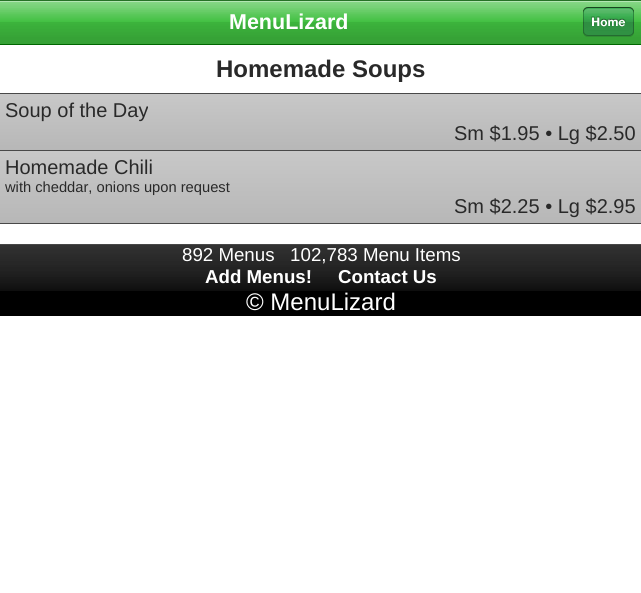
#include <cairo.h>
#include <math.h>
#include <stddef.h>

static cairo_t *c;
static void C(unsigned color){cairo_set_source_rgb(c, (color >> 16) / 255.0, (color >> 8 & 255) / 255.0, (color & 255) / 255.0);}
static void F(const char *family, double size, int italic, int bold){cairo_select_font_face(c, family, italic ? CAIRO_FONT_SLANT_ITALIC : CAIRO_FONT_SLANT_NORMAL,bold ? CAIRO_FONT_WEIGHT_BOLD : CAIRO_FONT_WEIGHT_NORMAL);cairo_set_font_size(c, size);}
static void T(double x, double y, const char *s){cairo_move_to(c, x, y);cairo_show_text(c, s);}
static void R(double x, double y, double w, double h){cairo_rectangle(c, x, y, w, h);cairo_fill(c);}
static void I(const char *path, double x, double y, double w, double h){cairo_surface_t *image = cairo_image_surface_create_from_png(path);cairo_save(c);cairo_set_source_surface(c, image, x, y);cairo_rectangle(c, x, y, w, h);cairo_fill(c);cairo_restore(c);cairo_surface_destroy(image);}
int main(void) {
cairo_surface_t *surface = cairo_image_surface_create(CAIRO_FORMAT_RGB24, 641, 593);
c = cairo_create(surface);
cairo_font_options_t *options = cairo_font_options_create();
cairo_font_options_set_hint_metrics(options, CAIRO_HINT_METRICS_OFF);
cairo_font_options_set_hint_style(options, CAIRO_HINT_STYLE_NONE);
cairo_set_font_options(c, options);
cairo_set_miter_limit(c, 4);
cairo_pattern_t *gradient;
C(0xffffff);
cairo_paint(c);
I("1.png",0,0,641,44);
C(0x006600);
R(0,44,641,1);
F("Liberation Sans",21.5,0,1);
C(0xffffff);
T(229,29,"MenuLizard");
I("2.png",583,7,51,30);
F("Liberation Sans",24,0,1);
C(0x292929);
T(216,77,"Homemade Soups");
gradient = cairo_pattern_create_linear(0,94,0,150);
cairo_pattern_add_color_stop_rgba(gradient,0,0.784,0.784,0.784,1);
cairo_pattern_add_color_stop_rgba(gradient,1,0.718,0.718,0.718,1);
cairo_set_source(c,gradient);
cairo_pattern_destroy(gradient);
R(0,94,641,56);
C(0x494949);
R(0,93,641,1);
R(0,150,641,1);
F("Liberation Sans",20,0,0);
C(0x292929);
T(5,117,"Soup of the Day");
T(454,140,"Sm $1.95 • Lg $2.50");
gradient = cairo_pattern_create_linear(0,151,0,223);
cairo_pattern_add_color_stop_rgba(gradient,0,0.784,0.784,0.784,1);
cairo_pattern_add_color_stop_rgba(gradient,1,0.718,0.718,0.718,1);
cairo_set_source(c,gradient);
cairo_pattern_destroy(gradient);
R(0,151,641,72);
C(0x494949);
R(0,223,641,1);
C(0x292929);
T(5,174,"Homemade Chili");
F("Liberation Sans",14.7,0,0);
T(5,192,"with cheddar, onions upon request");
F("Liberation Sans",20,0,0);
T(454,213,"Sm $2.25 • Lg $2.95");
I("3.png",0,244,641,72);
F("Liberation Sans",18.7,0,0);
C(0xffffff);
T(182,261,"892 Menus   102,783 Menu Items");
F("Liberation Sans",18.7,0,1);
T(205,283,"Add Menus!");
T(338,283,"Contact Us");
F("Liberation Sans",24,0,0);
T(246,310,"© MenuLizard");
cairo_surface_write_to_png(surface, "o.png");
cairo_font_options_destroy(options);
cairo_destroy(c);
cairo_surface_destroy(surface);
return 0;
}
